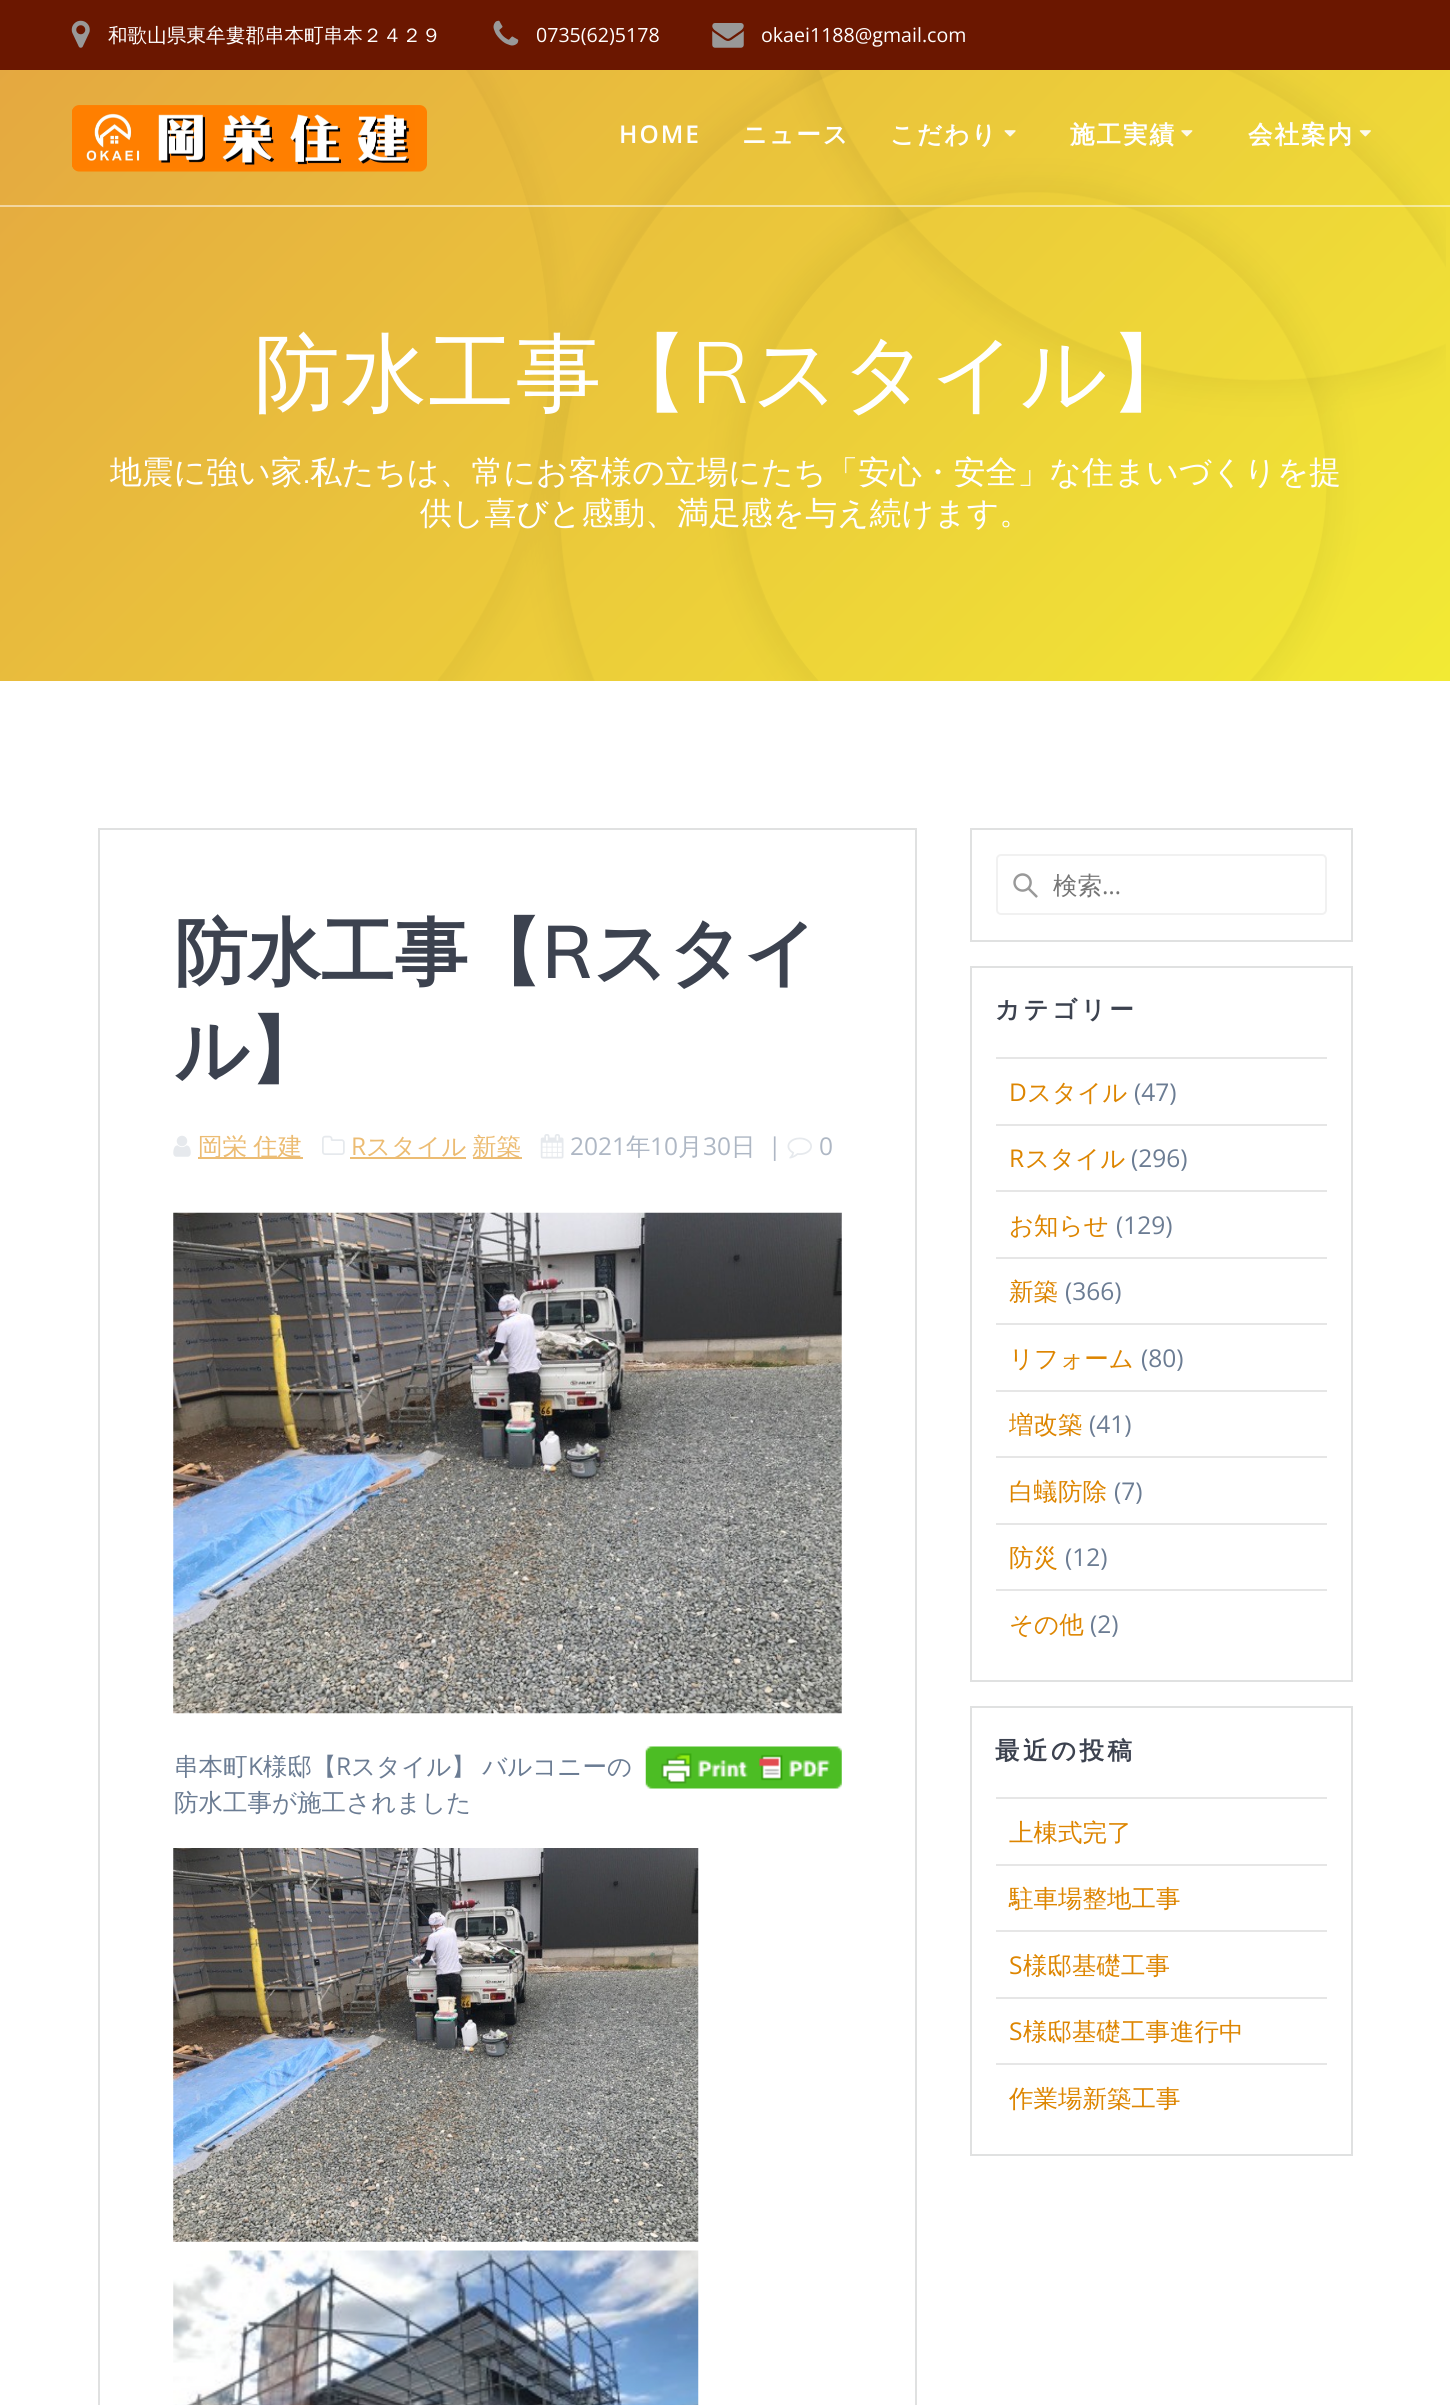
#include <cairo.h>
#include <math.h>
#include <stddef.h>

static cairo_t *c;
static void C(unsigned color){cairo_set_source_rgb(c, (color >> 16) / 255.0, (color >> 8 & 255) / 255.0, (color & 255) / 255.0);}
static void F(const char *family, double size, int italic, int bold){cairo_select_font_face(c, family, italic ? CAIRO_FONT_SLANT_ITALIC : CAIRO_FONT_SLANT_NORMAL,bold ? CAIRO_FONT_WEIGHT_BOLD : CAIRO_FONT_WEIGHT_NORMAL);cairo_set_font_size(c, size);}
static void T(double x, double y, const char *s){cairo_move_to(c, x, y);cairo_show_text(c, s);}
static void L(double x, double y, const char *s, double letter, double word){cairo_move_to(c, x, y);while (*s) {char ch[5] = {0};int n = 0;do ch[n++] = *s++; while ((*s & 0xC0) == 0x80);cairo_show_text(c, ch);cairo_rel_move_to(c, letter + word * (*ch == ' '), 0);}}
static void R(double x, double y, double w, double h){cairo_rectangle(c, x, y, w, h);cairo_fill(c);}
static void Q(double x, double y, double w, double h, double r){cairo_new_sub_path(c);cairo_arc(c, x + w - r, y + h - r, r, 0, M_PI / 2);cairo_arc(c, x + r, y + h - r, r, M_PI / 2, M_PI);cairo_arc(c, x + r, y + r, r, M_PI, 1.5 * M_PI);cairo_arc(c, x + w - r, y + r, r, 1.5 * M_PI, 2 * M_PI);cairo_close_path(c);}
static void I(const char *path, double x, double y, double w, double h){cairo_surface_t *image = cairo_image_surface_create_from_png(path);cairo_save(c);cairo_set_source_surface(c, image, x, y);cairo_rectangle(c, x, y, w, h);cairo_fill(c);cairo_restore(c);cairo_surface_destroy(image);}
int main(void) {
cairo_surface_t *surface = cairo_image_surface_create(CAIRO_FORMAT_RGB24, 1450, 2405);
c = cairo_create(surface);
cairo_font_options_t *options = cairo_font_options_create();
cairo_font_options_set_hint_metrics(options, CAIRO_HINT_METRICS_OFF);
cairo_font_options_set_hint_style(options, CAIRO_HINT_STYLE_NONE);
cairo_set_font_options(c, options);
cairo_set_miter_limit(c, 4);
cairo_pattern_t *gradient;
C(0xffffff);
cairo_paint(c);
C(0x6b1700);
R(0,0,1450,70);
I("1.png",71,20,19,28);
F("WenQuanYi Zen Hei Medium",19.6,0,0);
C(0xffffff);
T(108,42,"和歌山県東牟婁郡串本町串本２４２９");
I("2.png",493,20,26,26);
F("Open Sans",19.6,0,0);
T(536,42,"0735(62)5178");
I("3.png",712,23,32,25);
T(761,42,"okaei1188@gmail.com");
gradient = cairo_pattern_create_linear(193,-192,1258,873);
cairo_pattern_add_color_stop_rgba(gradient,0,0.894,0.651,0.255,1);
cairo_pattern_add_color_stop_rgba(gradient,1,0.949,0.918,0.204,1);
cairo_set_source(c,gradient);
cairo_pattern_destroy(gradient);
R(0,70,1450,611);
I("8.png",438,70,1008,611);
cairo_set_source_rgba(c,1,1,1,0.5);
R(0,205,1450,2);
I("4.png",72,105,355,67);
F("Open Sans SemiBold",24.5,0,0);
C(0xffffff);
L(619,143,"HOME",2,0);
F("WenQuanYi Zen Hei",24.5,0,1);
L(742,143,"ニュース",2,0);
L(890,143,"こだわり",2,0);
I("5.png",1004,130,12,7);
L(1070,143,"施工実績",2,0);
I("6.png",1181,130,12,7);
L(1248,143,"会社案内",2,0);
I("7.png",1359,130,12,7);
F("WenQuanYi Zen Hei Medium",85.75,0,0);
L(254,403,"防水工事【",1.5,0);
F("Muli Light",85.75,0,0);
L(691,403,"R",1.5,0);
F("WenQuanYi Zen Hei Medium",85.75,0,0);
L(752,403,"スタイル】",1.5,0);
F("WenQuanYi Zen Hei Medium",31.85,0,0);
T(110,483,"地震に強い家");
F("Muli Light",31.85,0,0);
T(303,483,".");
F("WenQuanYi Zen Hei Medium",31.85,0,0);
T(310,483,"私たちは、常にお客様の立場にたち「安心・安全」な住まいづくりを提");
T(420,524,"供し喜びと感動、満足感を与え続けます。");
cairo_rectangle(c,99,829,817,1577);
C(0xe0e1e1);
cairo_stroke(c);
F("WenQuanYi Zen Hei",73.5,0,1);
C(0x3c424f);
T(174,978,"防水工事【");
F("Muli SemiBold",73.5,0,0);
T(542,978,"R");
F("WenQuanYi Zen Hei",73.5,0,1);
T(593,978,"スタイ");
T(174,1076,"ル】");
I("9.png",173,1135,18,22);
C(0xecbc73);
R(198,1157,105,2);
F("WenQuanYi Zen Hei Medium",24.5,0,0);
L(198,1155,"岡栄 住建",0,-1);
I("10.png",322,1135,23,20);
F("Open Sans",24.5,0,0);
T(351,1155,"R");
R(350,1157,116,2);
F("WenQuanYi Zen Hei Medium",24.5,0,0);
T(366,1155,"スタイル");
R(473,1157,49,2);
T(472,1155,"新築");
I("11.png",540,1134,24,25);
F("Open Sans",24.5,0,0);
C(0xaeb7c4);
T(570,1155,"2021");
F("WenQuanYi Zen Hei Medium",24.5,0,0);
T(626,1155,"年");
F("Open Sans",24.5,0,0);
T(650,1155,"10");
F("WenQuanYi Zen Hei Medium",24.5,0,0);
T(678,1155,"月");
F("Open Sans",24.5,0,0);
T(703,1155,"30");
F("WenQuanYi Zen Hei Medium",24.5,0,0);
T(731,1155,"日");
F("Open Sans",24.5,0,0);
T(768,1155,"|");
I("12.png",787,1137,25,22);
T(819,1155,"0");
I("13.png",173,1212,669,502);
F("WenQuanYi Zen Hei Medium",24.5,0,0);
C(0x6b7c93);
T(174,1775,"串本町");
F("Open Sans",24.5,0,0);
T(248,1775,"K");
F("WenQuanYi Zen Hei Medium",24.5,0,0);
T(263,1775,"様邸【");
F("Open Sans",24.5,0,0);
T(336,1775,"R");
F("WenQuanYi Zen Hei Medium",24.5,0,0);
L(351,1775,"スタイル】 バルコニーの",0,-1);
T(174,1811,"防水工事が施工されました");
I("14.png",645,1746,197,43);
I("15.png",173,1848,526,394);
I("16.png",173,2250,526,155);
cairo_rectangle(c,971,829,381,112);
C(0xe0e1e1);
cairo_stroke(c);
I("17.png",1013,873,25,25);
Q(997,855,329,59,4);
C(0xf1f1f1);
cairo_stroke(c);
C(0x757575);
T(1053,894,"検索");
F("Open Sans",24.5,0,0);
T(1102,894,"…");
cairo_rectangle(c,971,967,381,714);
C(0xe0e1e1);
cairo_stroke(c);
F("WenQuanYi Zen Hei",24.5,0,1);
C(0x3c424f);
L(995,1018,"カテゴリー",3.5,0);
C(0xe6e6e6);
R(996,1057,331,2);
F("Open Sans",24.5,0,0);
C(0xdd8500);
T(1009,1101,"D");
F("WenQuanYi Zen Hei Medium",24.5,0,0);
T(1027,1101,"スタイル");
F("Open Sans",24.5,0,0);
C(0x6b7c93);
T(1134,1101,"(47)");
C(0xe6e6e6);
R(996,1124,331,2);
C(0xdd8500);
T(1009,1167,"R");
F("WenQuanYi Zen Hei Medium",24.5,0,0);
T(1025,1167,"スタイル");
F("Open Sans",24.5,0,0);
C(0x6b7c93);
T(1131,1167,"(296)");
C(0xe6e6e6);
R(996,1190,331,2);
F("WenQuanYi Zen Hei Medium",24.5,0,0);
C(0xdd8500);
T(1009,1234,"お知らせ");
F("Open Sans",24.5,0,0);
C(0x6b7c93);
T(1116,1234,"(129)");
C(0xe6e6e6);
R(996,1257,331,2);
F("WenQuanYi Zen Hei Medium",24.5,0,0);
C(0xdd8500);
T(1009,1300,"新築");
F("Open Sans",24.5,0,0);
C(0x6b7c93);
T(1065,1300,"(366)");
C(0xe6e6e6);
R(996,1323,331,2);
F("WenQuanYi Zen Hei Medium",24.5,0,0);
C(0xdd8500);
T(1009,1367,"リフォーム");
F("Open Sans",24.5,0,0);
C(0x6b7c93);
T(1141,1367,"(80)");
C(0xe6e6e6);
R(996,1390,331,2);
F("WenQuanYi Zen Hei Medium",24.5,0,0);
C(0xdd8500);
T(1009,1433,"増改築");
F("Open Sans",24.5,0,0);
C(0x6b7c93);
T(1089,1433,"(41)");
C(0xe6e6e6);
R(996,1456,331,2);
F("WenQuanYi Zen Hei Medium",24.5,0,0);
C(0xdd8500);
T(1009,1500,"白蟻防除");
F("Open Sans",24.5,0,0);
C(0x6b7c93);
T(1114,1500,"(7)");
C(0xe6e6e6);
R(996,1523,331,2);
F("WenQuanYi Zen Hei Medium",24.5,0,0);
C(0xdd8500);
T(1009,1566,"防災");
F("Open Sans",24.5,0,0);
C(0x6b7c93);
T(1065,1566,"(12)");
C(0xe6e6e6);
R(996,1589,331,2);
F("WenQuanYi Zen Hei Medium",24.5,0,0);
C(0xdd8500);
T(1009,1633,"その他");
F("Open Sans",24.5,0,0);
C(0x6b7c93);
T(1090,1633,"(2)");
cairo_rectangle(c,971,1707,381,448);
C(0xe0e1e1);
cairo_stroke(c);
F("WenQuanYi Zen Hei",24.5,0,1);
C(0x3c424f);
L(995,1759,"最近の投稿",3.5,0);
C(0xe6e6e6);
R(996,1797,331,2);
F("WenQuanYi Zen Hei Medium",24.5,0,0);
C(0xdd8500);
T(1009,1841,"上棟式完了");
C(0xe6e6e6);
R(996,1864,331,2);
C(0xdd8500);
T(1009,1907,"駐車場整地工事");
C(0xe6e6e6);
R(996,1930,331,2);
F("Open Sans",24.5,0,0);
C(0xdd8500);
T(1009,1974,"S");
F("WenQuanYi Zen Hei Medium",24.5,0,0);
T(1023,1974,"様邸基礎工事");
C(0xe6e6e6);
R(996,1997,331,2);
F("Open Sans",24.5,0,0);
C(0xdd8500);
T(1009,2040,"S");
F("WenQuanYi Zen Hei Medium",24.5,0,0);
T(1023,2040,"様邸基礎工事進行中");
C(0xe6e6e6);
R(996,2063,331,2);
C(0xdd8500);
T(1009,2107,"作業場新築工事");
cairo_surface_write_to_png(surface, "o.png");
cairo_font_options_destroy(options);
cairo_destroy(c);
cairo_surface_destroy(surface);
return 0;
}
